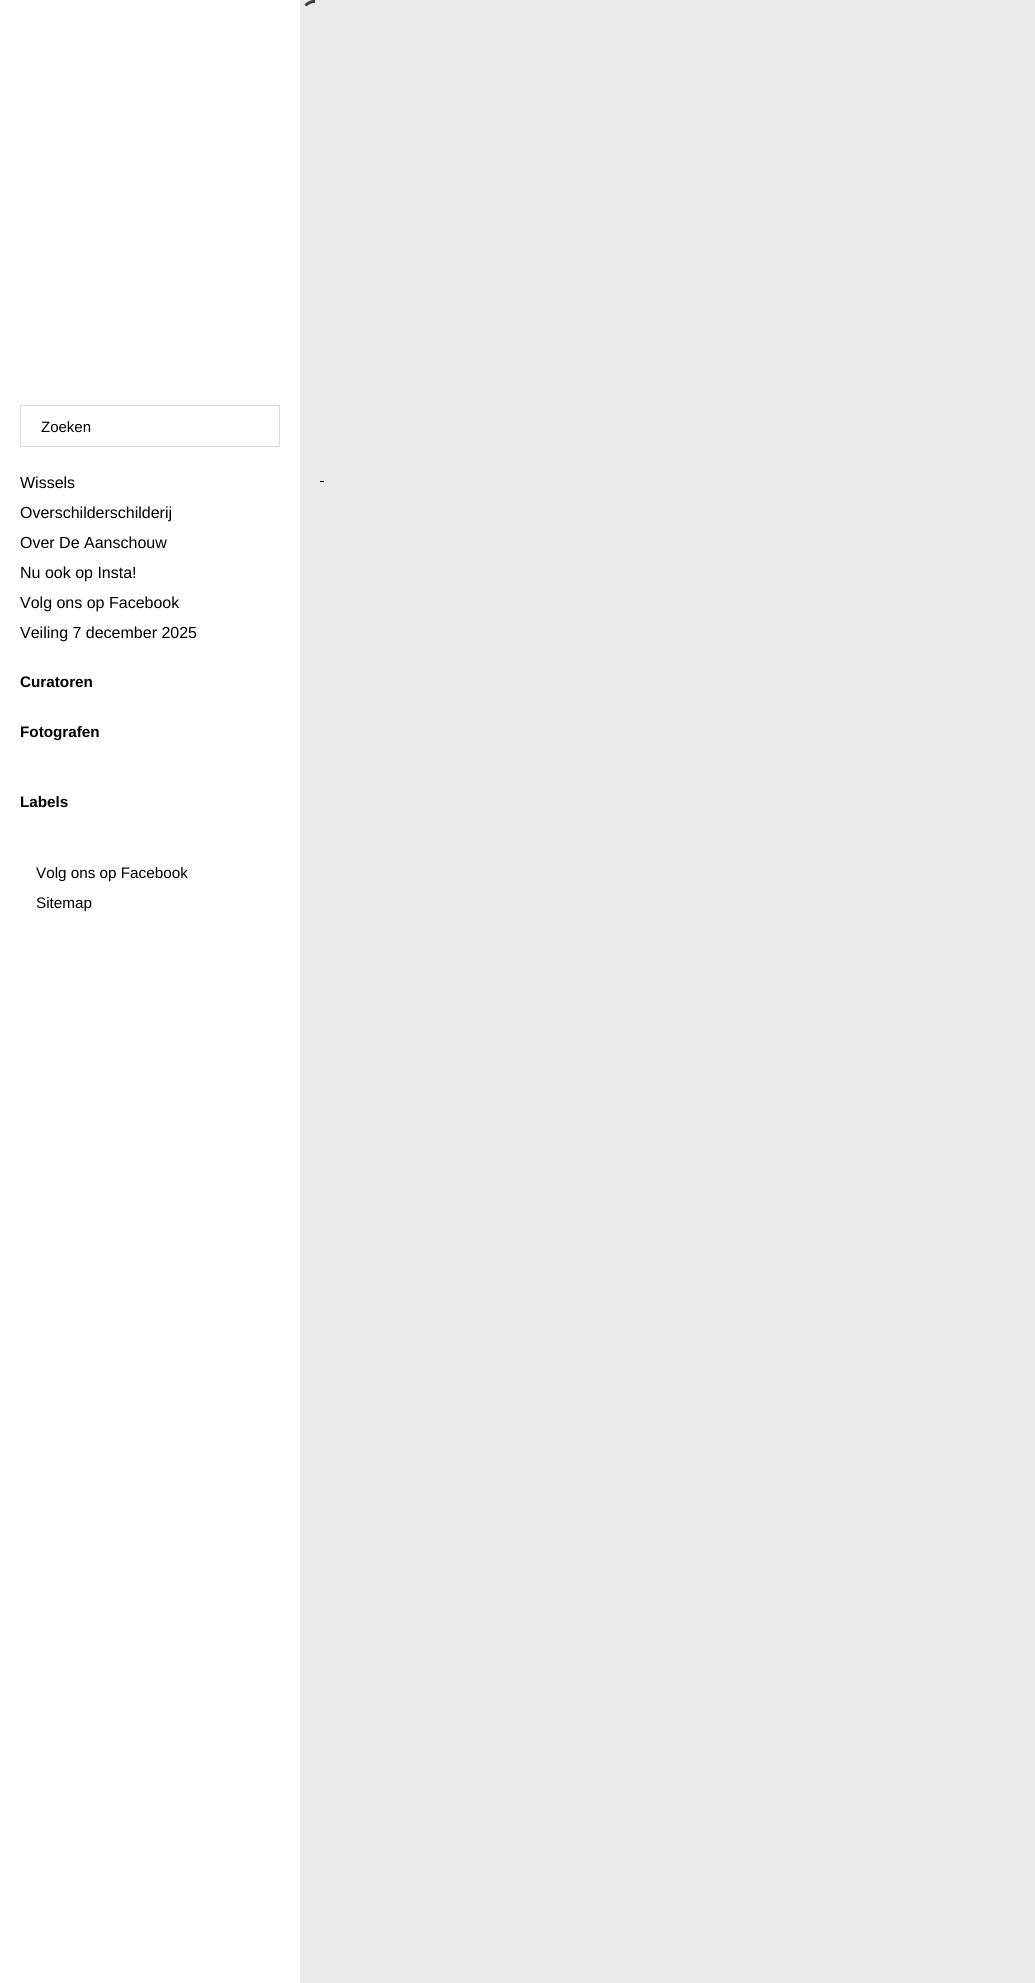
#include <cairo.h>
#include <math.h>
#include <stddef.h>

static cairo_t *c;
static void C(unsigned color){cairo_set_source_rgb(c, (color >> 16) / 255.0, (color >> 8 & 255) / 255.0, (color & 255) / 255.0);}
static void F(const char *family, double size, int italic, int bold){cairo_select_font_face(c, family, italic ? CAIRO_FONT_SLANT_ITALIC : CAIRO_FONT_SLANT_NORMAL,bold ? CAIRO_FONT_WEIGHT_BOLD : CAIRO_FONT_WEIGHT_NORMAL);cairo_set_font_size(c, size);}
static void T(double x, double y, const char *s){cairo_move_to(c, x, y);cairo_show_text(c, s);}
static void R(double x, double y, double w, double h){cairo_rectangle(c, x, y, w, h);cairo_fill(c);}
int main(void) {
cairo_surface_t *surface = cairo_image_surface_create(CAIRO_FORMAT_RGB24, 1035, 1983);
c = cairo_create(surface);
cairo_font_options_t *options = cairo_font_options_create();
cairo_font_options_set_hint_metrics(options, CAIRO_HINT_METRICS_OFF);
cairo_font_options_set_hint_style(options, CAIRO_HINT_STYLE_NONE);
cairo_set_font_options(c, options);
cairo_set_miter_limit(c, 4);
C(0xeaeaea);
cairo_paint(c);
cairo_save(c);
cairo_rectangle(c,300,0,15,30);
cairo_clip(c);
cairo_new_path(c);
cairo_move_to(c,305.5,5.5);
cairo_curve_to(c,318,-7,337,12,324.5,24.5);
C(0x3b3b3b);
cairo_set_line_width(c,3);
cairo_stroke(c);
cairo_restore(c);
C(0xffffff);
R(0,0,300,1983);
cairo_rectangle(c,20.5,405.5,259,41);
C(0xdddddd);
cairo_set_line_width(c,1);
cairo_stroke(c);
F("Liberation Sans",15,0,0);
C(0x000000);
T(41,432,"Zoeken");
F("Liberation Sans",16,0,0);
T(20,488,"Wissels");
T(20,518,"Overschilderschilderij");
T(20,548,"Over De Aanschouw");
T(20,578,"Nu ook op Insta!");
T(20,608,"Volg ons op Facebook");
T(20,638,"Veiling 7 december 2025");
F("Liberation Sans",15.25,0,1);
T(20,687,"Curatoren");
T(20,737,"Fotografen");
T(20,807,"Labels");
F("Liberation Sans",15.25,0,0);
T(36,878,"Volg ons op Facebook");
T(36,908,"Sitemap");
R(320,481,4,1);
cairo_surface_write_to_png(surface, "o.png");
cairo_font_options_destroy(options);
cairo_destroy(c);
cairo_surface_destroy(surface);
return 0;
}
